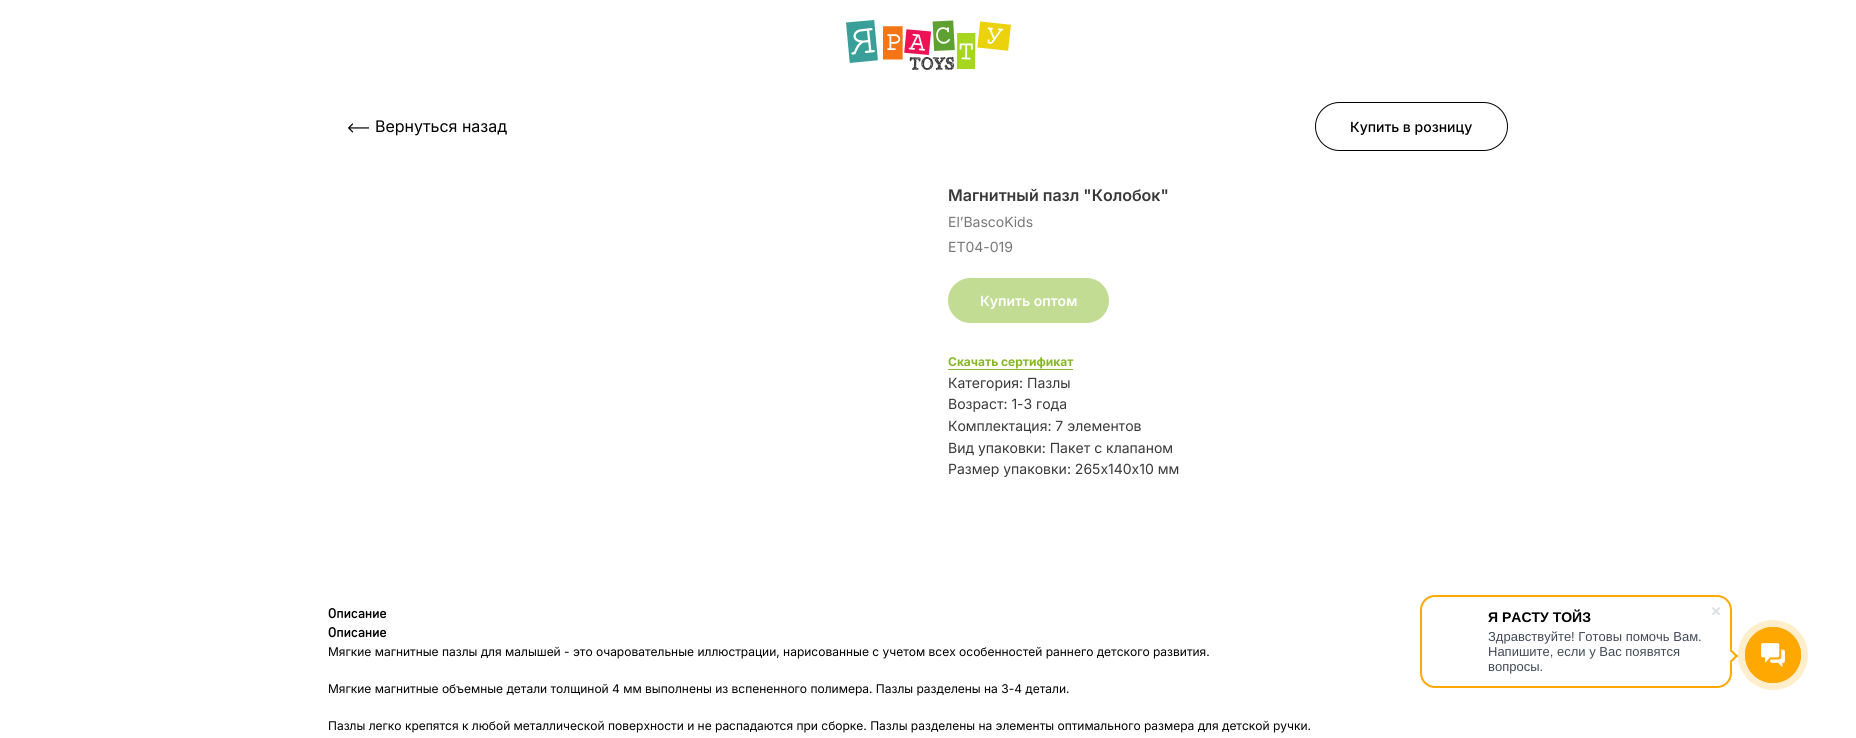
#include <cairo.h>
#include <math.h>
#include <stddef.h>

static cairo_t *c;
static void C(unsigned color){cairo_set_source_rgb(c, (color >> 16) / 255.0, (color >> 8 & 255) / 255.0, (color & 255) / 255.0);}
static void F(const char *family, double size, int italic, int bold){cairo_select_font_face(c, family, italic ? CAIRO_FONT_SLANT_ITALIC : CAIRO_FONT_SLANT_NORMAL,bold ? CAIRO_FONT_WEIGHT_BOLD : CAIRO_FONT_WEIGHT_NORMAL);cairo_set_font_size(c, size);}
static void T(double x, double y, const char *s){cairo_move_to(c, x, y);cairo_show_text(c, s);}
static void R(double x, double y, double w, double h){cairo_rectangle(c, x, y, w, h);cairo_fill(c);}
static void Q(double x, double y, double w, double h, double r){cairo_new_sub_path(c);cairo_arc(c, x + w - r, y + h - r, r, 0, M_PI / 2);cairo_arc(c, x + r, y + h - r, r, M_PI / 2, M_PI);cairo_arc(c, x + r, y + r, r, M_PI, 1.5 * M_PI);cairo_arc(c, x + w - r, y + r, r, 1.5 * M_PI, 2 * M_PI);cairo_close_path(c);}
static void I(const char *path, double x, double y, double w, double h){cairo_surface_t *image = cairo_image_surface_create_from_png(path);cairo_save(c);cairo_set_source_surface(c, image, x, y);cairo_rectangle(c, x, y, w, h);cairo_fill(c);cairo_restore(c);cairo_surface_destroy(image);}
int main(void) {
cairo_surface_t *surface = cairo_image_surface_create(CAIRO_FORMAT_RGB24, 1856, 738);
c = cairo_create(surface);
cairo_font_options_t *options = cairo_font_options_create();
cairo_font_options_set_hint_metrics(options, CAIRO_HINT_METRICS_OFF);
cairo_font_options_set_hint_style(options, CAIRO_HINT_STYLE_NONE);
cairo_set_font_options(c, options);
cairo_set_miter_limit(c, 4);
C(0xffffff);
cairo_paint(c);
I("1.png",846,20,165,50);
I("2.png",348,123,21,10);
F("Inter",16,0,0);
C(0x000000);
T(375,132,"Вернуться назад");
Q(1315.5,102.5,192,48,24);
cairo_set_line_width(c,1);
cairo_stroke(c);
F("Inter Medium",14,0,0);
T(1350,132,"Купить в розницу");
F("Inter SemiBold",16,0,0);
C(0x393939);
T(948,201,"Магнитный пазл \"Колобок\"");
F("Inter",14,0,0);
C(0x777777);
T(948,227,"El’BascoKids");
T(948,252,"ET04-019");
C(0xc3dc93);
Q(948,278,161,45,22.5);
cairo_fill(c);
F("Inter SemiBold",14,0,0);
C(0xffffff);
T(980,306,"Купить оптом");
F("Inter",12,0,1);
C(0x87b826);
T(948,366,"Скачать сертификат");
R(948,369,125,1);
F("Inter",14,0,0);
C(0x393939);
T(948,388,"Категория: Пазлы");
T(948,409,"Возраст: 1-3 года");
T(948,431,"Комплектация: 7 элементов");
T(948,453,"Вид упаковки: Пакет с клапаном");
T(948,474,"Размер упаковки: 265х140х10 мм");
F("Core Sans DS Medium",14,0,0);
C(0x000000);
T(328,618,"Описание");
T(328,637,"Описание");
F("Inter",12,0,0);
T(328,656,"Мягкие магнитные пазлы для малышей - это очаровательные иллюстрации, нарисованные с учетом всех особенностей раннего детского развития.");
T(328,693,"Мягкие магнитные объемные детали толщиной 4 мм выполнены из вспененного полимера. Пазлы разделены на 3-4 детали.");
T(328,730,"Пазлы легко крепятся к любой металлической поверхности и не распадаются при сборке. Пазлы разделены на элементы оптимального размера для детской ручки.");
Q(1421,596,310,91,14);
C(0xffa801);
cairo_set_line_width(c,2);
cairo_stroke(c);
F("Liberation Sans",14,0,1);
C(0x000000);
T(1488,622,"Я РАСТУ ТОЙЗ");
F("Liberation Sans",13,0,0);
C(0x424956);
T(1488,641,"Здравствуйте! Готовы помочь Вам.");
T(1488,656,"Напишите, если у Вас появятся");
T(1488,671,"вопросы.");
I("3.png",1712,607,8,8);
C(0xffffff);
cairo_new_path(c);
cairo_move_to(c,1724,656);
cairo_line_to(c,1731,649);
cairo_line_to(c,1738,656);
cairo_line_to(c,1731,663);
cairo_close_path(c);
cairo_fill(c);
C(0xffa801);
cairo_new_path(c);
cairo_move_to(c,1729.5,650.5);
cairo_line_to(c,1731,649);
cairo_line_to(c,1738,656);
cairo_line_to(c,1736.5,657.5);
cairo_close_path(c);
cairo_fill(c);
cairo_new_path(c);
cairo_move_to(c,1729.5,661.5);
cairo_line_to(c,1736.5,654.5);
cairo_line_to(c,1738,656);
cairo_line_to(c,1731,663);
cairo_close_path(c);
cairo_fill(c);
C(0xffeecc);
cairo_arc(c,1773,655,35,0,2 * M_PI);
cairo_fill(c);
cairo_arc(c,1773,655,27.6,0,2 * M_PI);
C(0xffa801);
cairo_set_line_width(c,.8);
cairo_stroke(c);
cairo_arc(c,1773,655,28,0,2 * M_PI);
cairo_fill(c);
I("4.png",1761,643,24,24);
cairo_surface_write_to_png(surface, "o.png");
cairo_font_options_destroy(options);
cairo_destroy(c);
cairo_surface_destroy(surface);
return 0;
}
